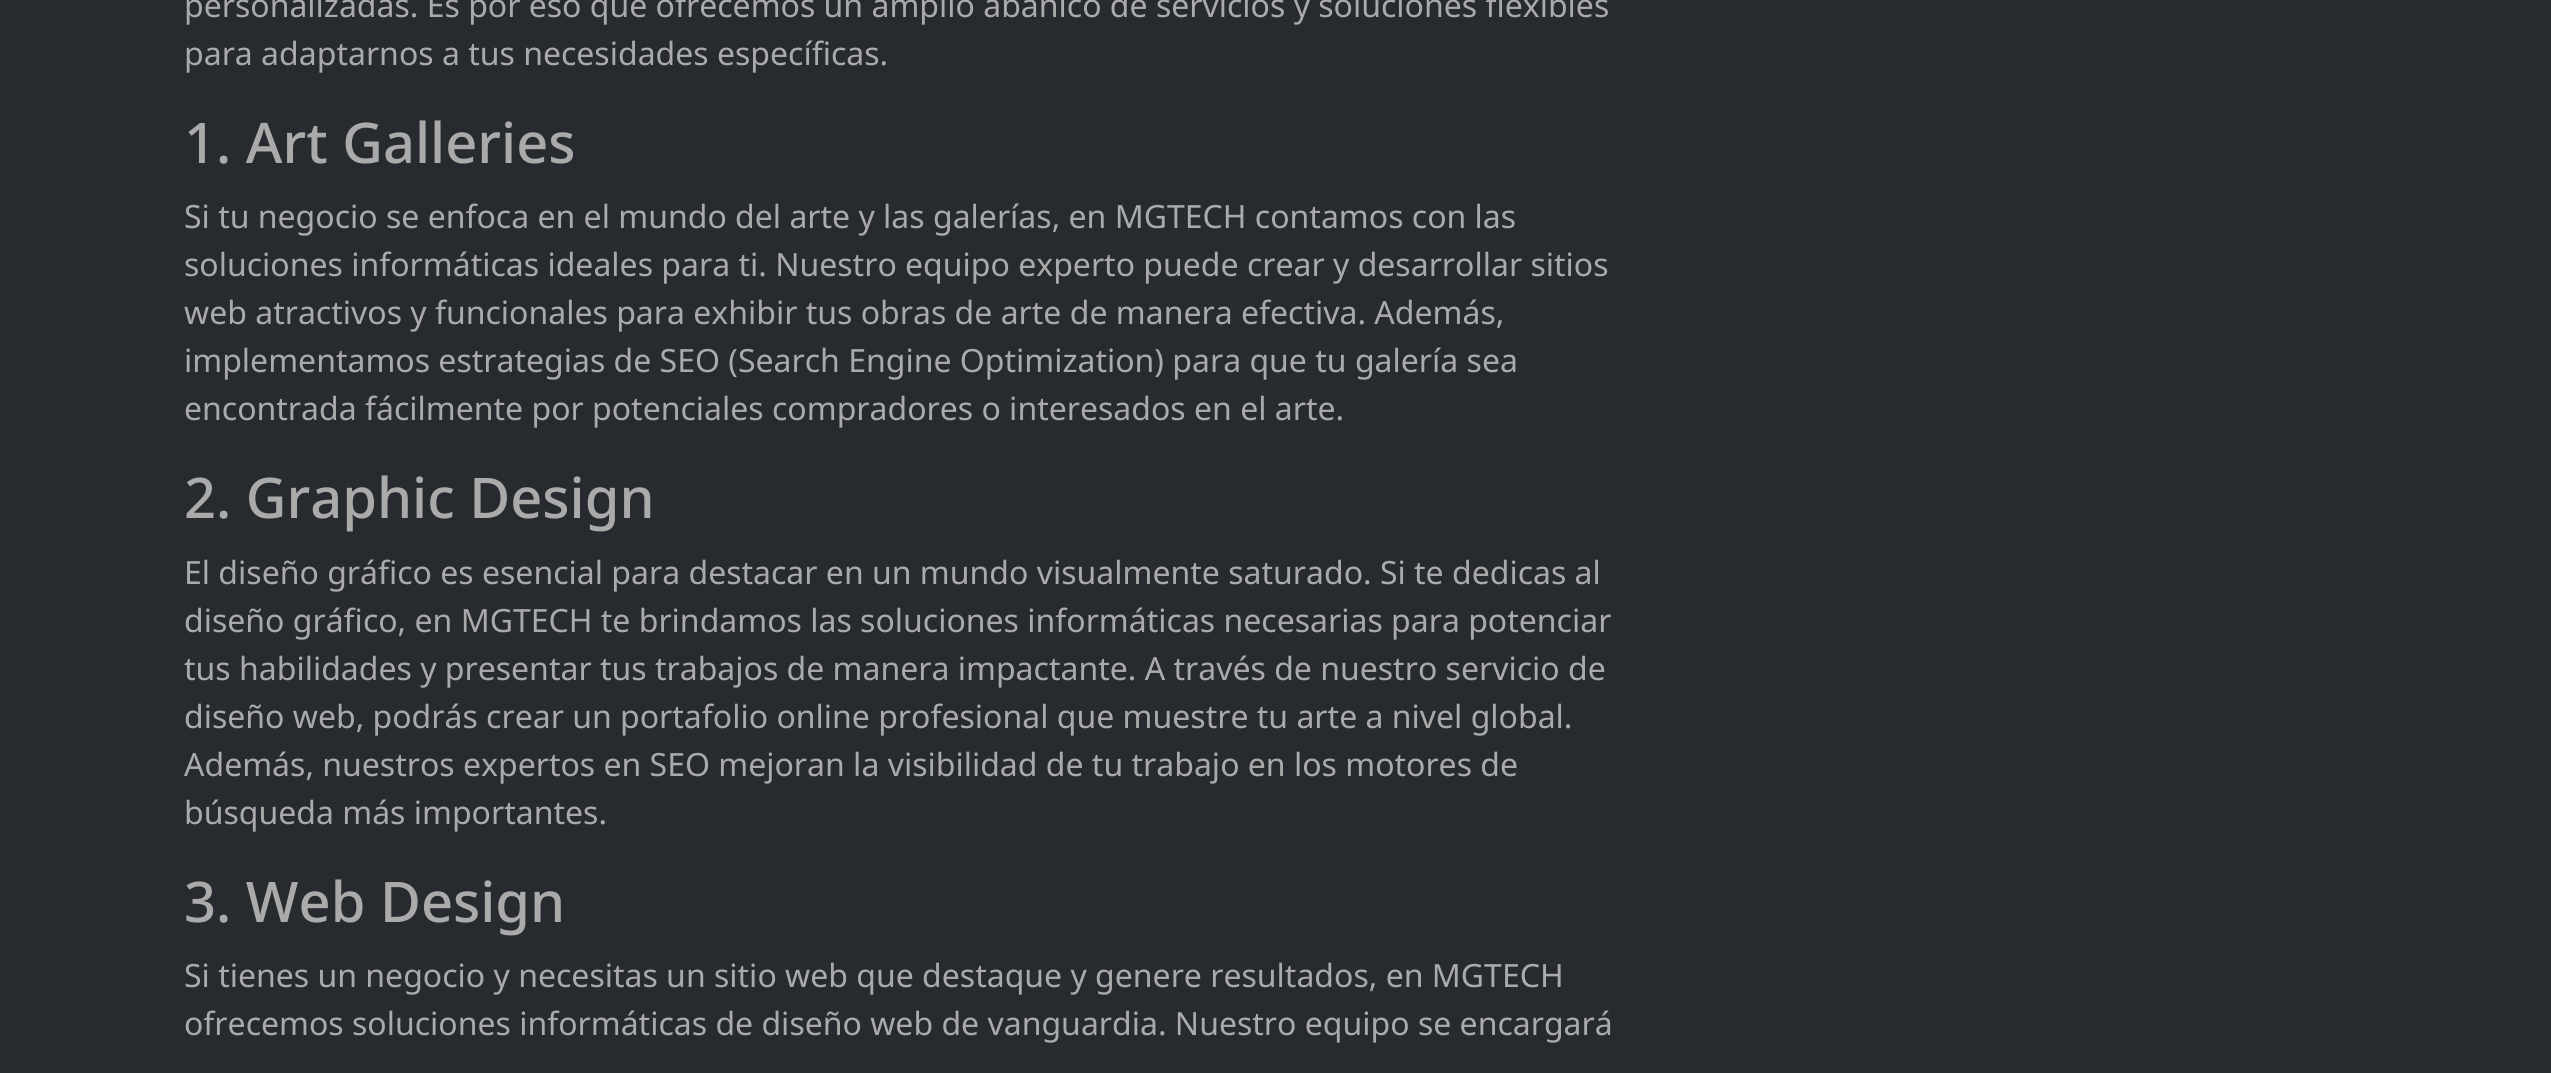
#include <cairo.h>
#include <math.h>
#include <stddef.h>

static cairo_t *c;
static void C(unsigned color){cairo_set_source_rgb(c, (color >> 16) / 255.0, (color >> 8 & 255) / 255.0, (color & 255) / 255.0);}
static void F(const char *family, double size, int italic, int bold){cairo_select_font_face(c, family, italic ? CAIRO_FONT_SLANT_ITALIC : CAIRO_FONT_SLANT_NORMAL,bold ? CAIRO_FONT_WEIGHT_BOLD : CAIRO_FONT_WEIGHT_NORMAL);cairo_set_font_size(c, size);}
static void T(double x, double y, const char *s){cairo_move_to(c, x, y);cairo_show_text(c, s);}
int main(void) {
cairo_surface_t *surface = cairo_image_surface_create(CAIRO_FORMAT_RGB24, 2551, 1073);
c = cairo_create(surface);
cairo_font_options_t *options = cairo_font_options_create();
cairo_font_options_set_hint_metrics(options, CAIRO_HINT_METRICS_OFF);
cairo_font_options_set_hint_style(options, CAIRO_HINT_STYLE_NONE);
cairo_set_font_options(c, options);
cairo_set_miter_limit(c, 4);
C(0x272b30);
cairo_paint(c);
F("Noto Sans",32,0,0);
C(0xaaaaaa);
T(184,17,"personalizadas. Es por eso que ofrecemos un amplio abanico de servicios y soluciones flexibles");
T(184,65,"para adaptarnos a tus necesidades específicas.");
F("Noto Sans Medium",56,0,0);
T(184,163,"1. Art Galleries");
F("Noto Sans",32,0,0);
T(184,228,"Si tu negocio se enfoca en el mundo del arte y las galerías, en MGTECH contamos con las");
T(184,276,"soluciones informáticas ideales para ti. Nuestro equipo experto puede crear y desarrollar sitios");
T(184,324,"web atractivos y funcionales para exhibir tus obras de arte de manera efectiva. Además,");
T(184,372,"implementamos estrategias de SEO (Search Engine Optimization) para que tu galería sea");
T(184,420,"encontrada fácilmente por potenciales compradores o interesados en el arte.");
F("Noto Sans Medium",56,0,0);
T(184,518,"2. Graphic Design");
F("Noto Sans",32,0,0);
T(184,584,"El diseño gráfico es esencial para destacar en un mundo visualmente saturado. Si te dedicas al");
T(184,632,"diseño gráfico, en MGTECH te brindamos las soluciones informáticas necesarias para potenciar");
T(184,680,"tus habilidades y presentar tus trabajos de manera impactante. A través de nuestro servicio de");
T(184,728,"diseño web, podrás crear un portafolio online profesional que muestre tu arte a nivel global.");
T(184,776,"Además, nuestros expertos en SEO mejoran la visibilidad de tu trabajo en los motores de");
T(184,824,"búsqueda más importantes.");
F("Noto Sans Medium",56,0,0);
T(184,922,"3. Web Design");
F("Noto Sans",32,0,0);
T(184,987,"Si tienes un negocio y necesitas un sitio web que destaque y genere resultados, en MGTECH");
T(184,1035,"ofrecemos soluciones informáticas de diseño web de vanguardia. Nuestro equipo se encargará");
cairo_surface_write_to_png(surface, "o.png");
cairo_font_options_destroy(options);
cairo_destroy(c);
cairo_surface_destroy(surface);
return 0;
}
